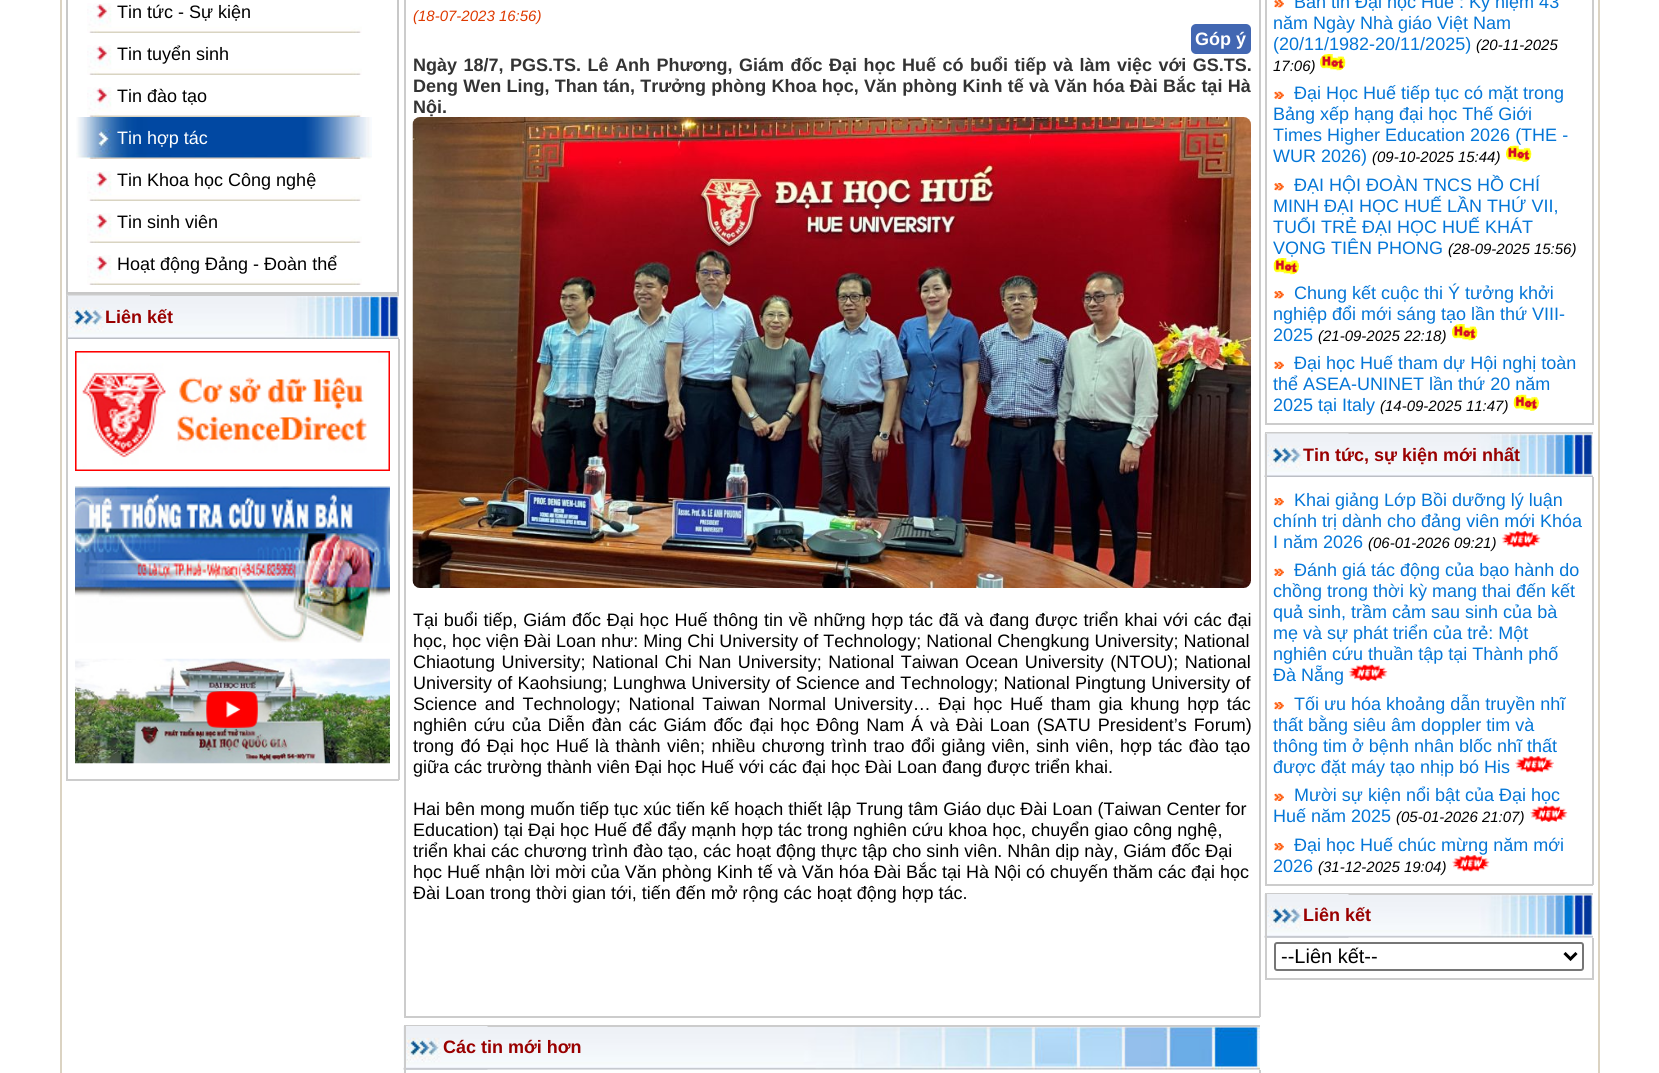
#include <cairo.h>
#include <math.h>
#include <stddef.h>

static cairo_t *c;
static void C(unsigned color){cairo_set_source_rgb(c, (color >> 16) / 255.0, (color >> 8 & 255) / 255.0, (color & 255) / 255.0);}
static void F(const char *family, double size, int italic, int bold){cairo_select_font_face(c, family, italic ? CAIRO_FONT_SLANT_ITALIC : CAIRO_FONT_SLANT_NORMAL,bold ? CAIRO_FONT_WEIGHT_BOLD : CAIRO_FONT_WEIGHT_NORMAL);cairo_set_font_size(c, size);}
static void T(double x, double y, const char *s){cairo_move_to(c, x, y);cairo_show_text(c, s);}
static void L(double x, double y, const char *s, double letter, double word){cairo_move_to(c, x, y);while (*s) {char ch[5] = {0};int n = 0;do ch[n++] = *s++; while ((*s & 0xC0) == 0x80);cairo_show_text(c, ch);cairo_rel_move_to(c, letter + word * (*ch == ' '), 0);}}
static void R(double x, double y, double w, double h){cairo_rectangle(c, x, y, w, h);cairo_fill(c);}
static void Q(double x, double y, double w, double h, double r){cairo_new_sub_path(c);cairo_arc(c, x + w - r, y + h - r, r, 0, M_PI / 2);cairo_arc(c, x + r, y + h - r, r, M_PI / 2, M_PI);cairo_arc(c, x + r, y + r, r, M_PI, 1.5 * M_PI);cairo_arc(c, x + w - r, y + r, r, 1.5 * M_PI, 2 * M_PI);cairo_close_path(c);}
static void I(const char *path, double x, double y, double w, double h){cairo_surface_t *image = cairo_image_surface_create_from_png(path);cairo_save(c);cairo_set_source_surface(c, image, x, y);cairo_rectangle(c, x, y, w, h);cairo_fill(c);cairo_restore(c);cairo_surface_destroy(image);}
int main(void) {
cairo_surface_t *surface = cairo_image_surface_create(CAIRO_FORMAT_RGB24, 1659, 1073);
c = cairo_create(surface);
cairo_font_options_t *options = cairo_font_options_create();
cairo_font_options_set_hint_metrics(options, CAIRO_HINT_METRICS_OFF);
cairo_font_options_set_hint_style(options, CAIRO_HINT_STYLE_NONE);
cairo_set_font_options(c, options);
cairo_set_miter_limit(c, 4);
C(0xffffff);
cairo_paint(c);
C(0xdbd3c2);
R(1598,0,2,1073);
R(60,0,2,1073);
cairo_rectangle(c,67,-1,331,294);
C(0xc8c8c8);
cairo_stroke(c);
I("1.png",87,3,275,30);
F("Liberation Sans",18,0,0);
C(0x000000);
T(117,18,"Tin tức - Sự kiện");
I("1.png",87,45,275,30);
T(117,60,"Tin tuyển sinh");
I("1.png",87,87,275,30);
T(117,102,"Tin đào tạo");
I("2.png",76,117,296,42);
C(0xffffff);
T(117,144,"Tin hợp tác");
I("1.png",87,171,275,30);
C(0x000000);
T(117,186,"Tin Khoa học Công nghệ");
I("1.png",87,213,275,30);
T(117,228,"Tin sinh viên");
I("1.png",87,255,275,30);
T(117,270,"Hoạt động Đảng - Đoàn thể");
I("3.png",68,296,331,43);
C(0xcccccc);
R(66,294,333,2);
I("4.png",67,295,83,37);
R(66,296,2,43);
F("Liberation Sans",18,0,1);
C(0x990000);
T(105,323,"Liên kết");
C(0xcccccc);
R(398,339,2,441);
R(66,779,333,2);
R(66,339,2,441);
I("5.png",75,351,315,120);
I("6.png",75,486,315,157);
I("7.png",75,658,315,106);
R(1259,0,2,1017);
R(404,1016,856,2);
R(404,0,2,1017);
F("Liberation Sans",15,1,0);
C(0xde3900);
T(413,21,"(18-07-2023 16:56)");
C(0x4267b2);
Q(1191,24,60,30,5);
cairo_fill(c);
F("Liberation Sans",18,0,1);
C(0xffffff);
T(1195,45,"Góp ý");
C(0x333333);
L(413,71,"Ngày 18/7, PGS.TS. Lê Anh Phương, Giám đốc Đại học Huế có buổi tiếp và làm việc với GS.TS.",0,1.5);
L(413,92,"Deng Wen Ling, Than tán, Trưởng phòng Khoa học, Văn phòng Kinh tế và Văn hóa Đài Bắc tại Hà",0,.25);
T(413,113,"Nội.");
I("8.png",412,117,839,471);
F("Liberation Sans",18,0,0);
C(0x000000);
L(413,626,"Tại buổi tiếp, Giám đốc Đại học Huế thông tin về những hợp tác đã và đang được triển khai với các đại",0,.75);
T(413,647,"học, học viện Đài Loan như: Ming Chi University of Technology; National Chengkung University; National");
L(413,668,"Chiaotung University; National Chi Nan University; National Taiwan Ocean University (NTOU); National",0,1.5);
L(413,689,"University of Kaohsiung; Lunghwa University of Science and Technology; National Pingtung University of",0,.25);
L(413,710,"Science and Technology; National Taiwan Normal University… Đại học Huế tham gia khung hợp tác",0,2.75);
L(413,731,"nghiên cứu của Diễn đàn các Giám đốc đại học Đông Nam Á và Đài Loan (SATU President’s Forum)",0,1.9);
L(413,752,"trong đó Đại học Huế là thành viên; nhiều chương trình trao đổi giảng viên, sinh viên, hợp tác đào tạo",0,1.4);
T(413,773,"giữa các trường thành viên Đại học Huế với các đại học Đài Loan đang được triển khai.");
T(413,815,"Hai bên mong muốn tiếp tục xúc tiến kế hoạch thiết lập Trung tâm Giáo dục Đài Loan (Taiwan Center for");
T(413,836,"Education) tại Đại học Huế để đẩy mạnh hợp tác trong nghiên cứu khoa học, chuyển giao công nghệ,");
T(413,857,"triển khai các chương trình đào tạo, các hoạt động thực tập cho sinh viên. Nhân dịp này, Giám đốc Đại");
T(413,878,"học Huế nhận lời mời của Văn phòng Kinh tế và Văn hóa Đài Bắc tại Hà Nội có chuyến thăm các đại học");
T(413,899,"Đài Loan trong thời gian tới, tiến đến mở rộng các hoạt động hợp tác.");
I("9.png",403,1026,857,44);
C(0xcccccc);
R(404,1025,856,2);
I("10.png",406,1026,82,44);
R(404,1026,2,47);
F("Liberation Sans",18,0,1);
C(0x990000);
T(443,1053,"Các tin mới hơn");
C(0xcccccc);
R(1259,1070,2,3);
R(1592,0,2,425);
R(1265,423,328,2);
R(1265,0,2,425);
I("11.png",1274,0,10,8);
F("Liberation Sans",18,0,0);
C(0x0476d7);
T(1294,8,"Bản tin Đại học Huế : Kỷ niệm 43");
T(1273,29,"năm Ngày Nhà giáo Việt Nam");
T(1273,50,"(20/11/1982-20/11/2025)");
F("Liberation Sans",15,1,0);
C(0x000000);
T(1476,50,"(20-11-2025");
T(1273,71,"17:06)");
I("12.png",1320,54,26,17);
I("13.png",1273,91,11,8);
F("Liberation Sans",18,0,0);
C(0x0476d7);
T(1294,99,"Đại Học Huế tiếp tục có mặt trong");
T(1273,120,"Bảng xếp hạng đại học Thế Giới");
T(1273,141,"Times Higher Education 2026 (THE -");
T(1273,162,"WUR 2026)");
F("Liberation Sans",15,1,0);
C(0x000000);
T(1372,162,"(09-10-2025 15:44)");
I("14.png",1506,145,26,17);
I("11.png",1274,183,10,8);
F("Liberation Sans",18,0,0);
C(0x0476d7);
T(1294,191,"ĐẠI HỘI ĐOÀN TNCS HỒ CHÍ");
T(1273,212,"MINH ĐẠI HỌC HUẾ LẦN THỨ VII,");
T(1273,233,"TUỔI TRẺ ĐẠI HỌC HUẾ KHÁT");
T(1273,254,"VỌNG TIÊN PHONG");
F("Liberation Sans",15,1,0);
C(0x000000);
T(1448,254,"(28-09-2025 15:56)");
I("15.png",1273,258,26,17);
I("11.png",1274,291,10,8);
F("Liberation Sans",18,0,0);
C(0x0476d7);
T(1294,299,"Chung kết cuộc thi Ý tưởng khởi");
T(1273,320,"nghiệp đổi mới sáng tạo lần thứ VIII-");
T(1273,341,"2025");
F("Liberation Sans",15,1,0);
C(0x000000);
T(1318,341,"(21-09-2025 22:18)");
I("12.png",1452,324,26,17);
I("13.png",1273,361,11,8);
F("Liberation Sans",18,0,0);
C(0x0476d7);
T(1294,369,"Đại học Huế tham dự Hội nghị toàn");
T(1273,390,"thể ASEA-UNINET lần thứ 20 năm");
T(1273,411,"2025 tại Italy");
F("Liberation Sans",15,1,0);
C(0x000000);
T(1380,411,"(14-09-2025 11:47)");
I("16.png",1513,394,26,17);
I("17.png",1264,433,329,44);
C(0xcccccc);
R(1265,432,328,2);
I("18.png",1266,433,83,37);
R(1265,434,2,43);
F("Liberation Sans",18,0,1);
C(0x990000);
T(1303,461,"Tin tức, sự kiện mới nhất");
C(0xcccccc);
R(1592,477,2,408);
R(1265,884,328,2);
R(1265,477,2,408);
I("11.png",1274,498,10,8);
F("Liberation Sans",18,0,0);
C(0x0476d7);
T(1294,506,"Khai giảng Lớp Bồi dưỡng lý luận");
T(1273,527,"chính trị dành cho đảng viên mới Khóa");
T(1273,548,"I năm 2026");
F("Liberation Sans",15,1,0);
C(0x000000);
T(1368,548,"(06-01-2026 09:21)");
I("19.png",1501,531,40,17);
I("13.png",1273,568,11,8);
F("Liberation Sans",18,0,0);
C(0x0476d7);
T(1294,576,"Đánh giá tác động của bạo hành do");
T(1273,597,"chồng trong thời kỳ mang thai đến kết");
T(1273,618,"quả sinh, trầm cảm sau sinh của bà");
T(1273,639,"mẹ và sự phát triển của trẻ: Một");
T(1273,660,"nghiên cứu thuần tập tại Thành phố");
T(1273,681,"Đà Nẵng");
I("20.png",1348,664,40,17);
I("11.png",1274,702,10,8);
T(1294,710,"Tối ưu hóa khoảng dẫn truyền nhĩ");
T(1273,731,"thất bằng siêu âm doppler tim và");
T(1273,752,"thông tim ở bệnh nhân blốc nhĩ thất");
T(1273,773,"được đặt máy tạo nhịp bó His");
I("21.png",1515,756,39,17);
I("13.png",1273,793,11,8);
T(1294,801,"Mười sự kiện nổi bật của Đại học");
T(1273,822,"Huế năm 2025");
F("Liberation Sans",15,1,0);
C(0x000000);
T(1396,822,"(05-01-2026 21:07)");
I("22.png",1530,805,38,17);
I("11.png",1274,843,10,8);
F("Liberation Sans",18,0,0);
C(0x0476d7);
T(1294,851,"Đại học Huế chúc mừng năm mới");
T(1273,872,"2026");
F("Liberation Sans",15,1,0);
C(0x000000);
T(1318,872,"(31-12-2025 19:04)");
I("23.png",1452,855,38,17);
I("24.png",1264,894,329,44);
C(0xcccccc);
R(1265,893,328,2);
I("25.png",1267,894,82,44);
R(1265,894,2,44);
F("Liberation Sans",18,0,1);
C(0x990000);
T(1303,921,"Liên kết");
C(0xcccccc);
R(1592,938,2,42);
R(1265,978,328,2);
R(1265,938,2,42);
Q(1275,943,308,27,2);
C(0x767676);
cairo_stroke(c);
cairo_new_path(c);
cairo_move_to(c,1564.5,953);
cairo_line_to(c,1570.5,959);
cairo_line_to(c,1576.5,953);
C(0x000000);
cairo_set_line_width(c,3);
cairo_stroke(c);
F("Liberation Sans",20,0,0);
T(1281,963,"--Liên kết--");
cairo_surface_write_to_png(surface, "o.png");
cairo_font_options_destroy(options);
cairo_destroy(c);
cairo_surface_destroy(surface);
return 0;
}
